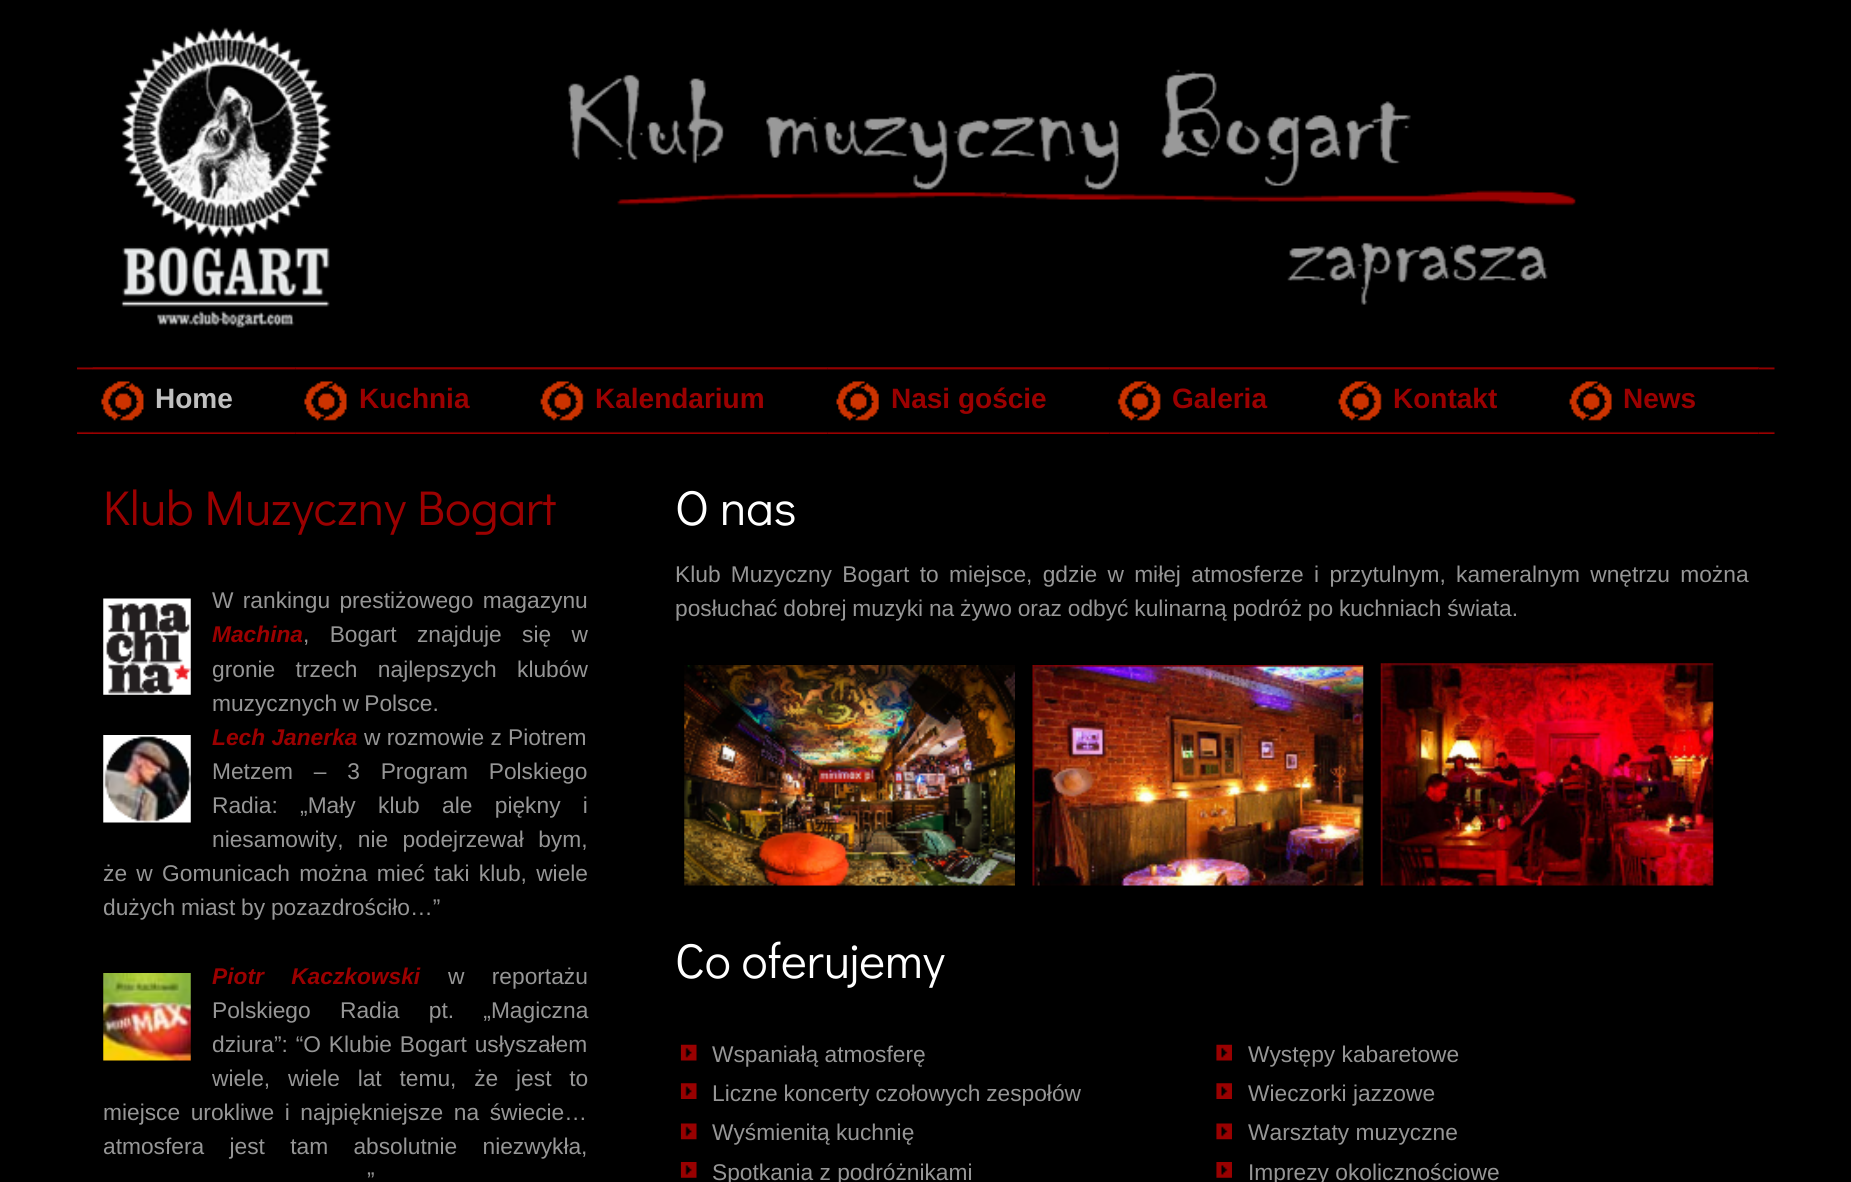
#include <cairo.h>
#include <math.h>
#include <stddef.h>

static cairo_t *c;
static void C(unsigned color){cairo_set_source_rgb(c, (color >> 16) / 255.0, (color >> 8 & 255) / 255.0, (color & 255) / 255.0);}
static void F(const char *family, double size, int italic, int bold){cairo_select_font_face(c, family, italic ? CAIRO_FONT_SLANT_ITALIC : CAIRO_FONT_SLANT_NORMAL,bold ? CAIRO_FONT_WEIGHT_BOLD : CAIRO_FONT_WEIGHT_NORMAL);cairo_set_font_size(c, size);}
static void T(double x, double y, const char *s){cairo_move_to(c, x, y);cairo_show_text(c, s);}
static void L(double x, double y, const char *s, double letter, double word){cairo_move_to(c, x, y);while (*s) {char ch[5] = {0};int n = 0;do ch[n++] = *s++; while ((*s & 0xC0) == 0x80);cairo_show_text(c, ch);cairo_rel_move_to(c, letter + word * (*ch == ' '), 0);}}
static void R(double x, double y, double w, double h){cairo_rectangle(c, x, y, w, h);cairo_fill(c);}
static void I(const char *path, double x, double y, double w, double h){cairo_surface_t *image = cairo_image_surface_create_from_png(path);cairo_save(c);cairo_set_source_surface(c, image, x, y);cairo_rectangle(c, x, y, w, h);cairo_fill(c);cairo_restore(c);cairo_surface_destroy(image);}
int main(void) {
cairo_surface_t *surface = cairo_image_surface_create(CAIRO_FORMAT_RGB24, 1851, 1182);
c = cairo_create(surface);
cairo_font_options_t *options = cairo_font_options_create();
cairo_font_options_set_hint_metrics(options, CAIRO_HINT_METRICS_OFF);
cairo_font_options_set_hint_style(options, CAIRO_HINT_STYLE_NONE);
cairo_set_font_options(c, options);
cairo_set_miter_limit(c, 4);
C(0x000000);
cairo_paint(c);
I("1.png",120,27,212,301);
I("2.png",568,69,1008,236);
I("3.png",77,367,1698,67);
C(0x000000);
R(93,368,203,66);
I("4.png",92,367,204,67);
F("Liberation Sans",28,0,1);
C(0xc0c0c0);
T(155,408,"Home");
C(0x000000);
R(296,368,236,65);
I("5.png",295,367,237,67);
C(0x9b0000);
T(359,408,"Kuchnia");
C(0x000000);
R(532,368,578,66);
I("6.png",532,367,296,67);
C(0x9b0000);
T(595,408,"Kalendarium");
I("7.png",827,367,283,67);
T(891,408,"Nasi goście");
C(0x000000);
R(1110,368,451,65);
I("8.png",1109,367,221,67);
C(0x9b0000);
T(1172,408,"Galeria");
I("9.png",1330,367,231,67);
T(1393,408,"Kontakt");
C(0x000000);
R(1561,368,198,66);
I("10.png",1561,367,198,67);
C(0x9b0000);
T(1623,408,"News");
F("Didact Gothic",49,0,0);
T(103,525,"Klub Muzyczny Bogart");
I("11.png",103,598,88,97);
F("Liberation Sans",22.75,0,0);
C(0x969696);
L(212,608,"W rankingu prestiżowego magazynu",0,3);
F("Liberation Sans",22.75,1,1);
C(0x9b0000);
T(212,642,"Machina");
F("Liberation Sans",22.75,0,0);
C(0x969696);
L(303,642,", Bogart znajduje się w",0,14);
L(212,677,"gronie trzech najlepszych klubów",0,14);
L(212,711,"muzycznych w Polsce.",0,-1);
I("12.png",103,735,88,88);
F("Liberation Sans",22.75,1,1);
C(0x9b0000);
T(212,745,"Lech Janerka");
F("Liberation Sans",22.75,0,0);
C(0x969696);
T(364,745,"w rozmowie z Piotrem");
L(212,779,"Metzem – 3 Program Polskiego",0,14.5);
L(212,813,"Radia: „Mały klub ale piękny i",0,16);
L(212,847,"niesamowity, nie podejrzewał bym,",0,8);
L(103,881,"że w Gomunicach można mieć taki klub, wiele",0,3);
L(103,915,"dużych miast by pozazdrościło…”",0,-.5);
I("13.png",103,973,88,88);
F("Liberation Sans",22.75,1,1);
C(0x9b0000);
L(212,984,"Piotr Kaczkowski",0,21);
F("Liberation Sans",22.75,0,0);
C(0x969696);
L(448,984,"w reportażu",0,21);
L(212,1018,"Polskiego Radia pt. „Magiczna",0,23);
L(212,1052,"dziura”: “O Klubie Bogart usłyszałem",0,1.5);
L(212,1086,"wiele, wiele lat temu, że jest to",0,11.5);
L(103,1120,"miejsce urokliwe i najpiękniejsze na świecie…",0,4.25);
L(103,1154,"atmosfera jest tam absolutnie niezwykła,",0,19);
L(367,1188,"”",0,-.5);
F("Didact Gothic",49,0,0);
C(0xffffff);
T(675,525,"O nas");
F("Liberation Sans",22.75,0,0);
C(0x969696);
L(675,582,"Klub Muzyczny Bogart to miejsce, gdzie w miłej atmosferze i przytulnym, kameralnym wnętrzu można",0,4);
L(675,616,"posłuchać dobrej muzyki na żywo oraz odbyć kulinarną podróż po kuchniach świata.",0,-.5);
I("14.png",684,665,331,221);
I("15.png",1032,665,332,221);
I("16.png",1380,663,334,223);
F("Didact Gothic",49,0,0);
C(0xffffff);
T(675,978,"Co oferujemy");
I("17.png",680,1044,17,17);
F("Liberation Sans",22.75,0,0);
C(0x969696);
T(712,1062,"Wspaniałą atmosferę");
I("18.png",680,1083,17,16);
L(712,1101,"Liczne koncerty czołowych zespołów",0,-.5);
I("19.png",680,1123,17,17);
T(712,1140,"Wyśmienitą kuchnię");
I("20.png",680,1162,17,16);
T(712,1180,"Spotkania z podróżnikami");
I("21.png",1216,1044,16,17);
T(1248,1062,"Występy kabaretowe");
I("22.png",1216,1083,16,16);
T(1248,1101,"Wieczorki jazzowe");
I("23.png",1216,1123,16,17);
T(1248,1140,"Warsztaty muzyczne");
I("24.png",1216,1162,16,16);
T(1248,1180,"Imprezy okolicznościowe");
cairo_surface_write_to_png(surface, "o.png");
cairo_font_options_destroy(options);
cairo_destroy(c);
cairo_surface_destroy(surface);
return 0;
}
